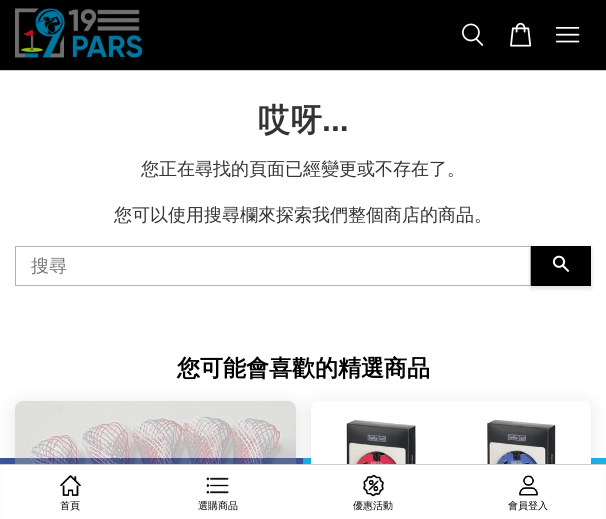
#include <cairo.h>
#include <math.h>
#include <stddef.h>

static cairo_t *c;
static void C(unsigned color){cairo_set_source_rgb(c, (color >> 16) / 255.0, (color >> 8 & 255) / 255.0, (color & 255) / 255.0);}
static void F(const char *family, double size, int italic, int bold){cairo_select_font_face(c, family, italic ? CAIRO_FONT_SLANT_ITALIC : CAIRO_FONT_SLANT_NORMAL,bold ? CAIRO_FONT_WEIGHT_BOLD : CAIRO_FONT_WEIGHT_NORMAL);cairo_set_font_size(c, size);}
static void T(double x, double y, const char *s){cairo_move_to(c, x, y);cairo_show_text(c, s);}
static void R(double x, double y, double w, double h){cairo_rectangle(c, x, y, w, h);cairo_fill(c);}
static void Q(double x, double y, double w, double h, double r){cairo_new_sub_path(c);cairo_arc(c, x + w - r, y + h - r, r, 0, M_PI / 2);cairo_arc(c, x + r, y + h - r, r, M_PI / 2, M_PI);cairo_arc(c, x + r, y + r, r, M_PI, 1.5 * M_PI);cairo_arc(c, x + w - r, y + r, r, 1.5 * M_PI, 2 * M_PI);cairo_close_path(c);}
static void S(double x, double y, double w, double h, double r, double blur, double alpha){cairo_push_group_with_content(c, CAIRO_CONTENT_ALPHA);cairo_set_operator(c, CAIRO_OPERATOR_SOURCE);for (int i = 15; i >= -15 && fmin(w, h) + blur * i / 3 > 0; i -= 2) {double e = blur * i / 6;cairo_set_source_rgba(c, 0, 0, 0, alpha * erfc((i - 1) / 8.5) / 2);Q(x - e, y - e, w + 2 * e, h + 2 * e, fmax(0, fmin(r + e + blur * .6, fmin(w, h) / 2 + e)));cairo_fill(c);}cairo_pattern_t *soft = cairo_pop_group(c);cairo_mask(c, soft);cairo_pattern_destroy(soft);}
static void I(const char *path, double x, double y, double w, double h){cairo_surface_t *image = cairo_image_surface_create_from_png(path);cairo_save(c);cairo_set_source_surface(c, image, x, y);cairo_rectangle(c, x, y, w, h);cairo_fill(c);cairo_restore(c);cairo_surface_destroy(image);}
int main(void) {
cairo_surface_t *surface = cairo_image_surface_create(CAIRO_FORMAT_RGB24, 606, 519);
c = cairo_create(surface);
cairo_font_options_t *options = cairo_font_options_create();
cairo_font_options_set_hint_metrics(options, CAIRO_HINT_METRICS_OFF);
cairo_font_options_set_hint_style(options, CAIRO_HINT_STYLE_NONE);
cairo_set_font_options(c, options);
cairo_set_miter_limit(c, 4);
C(0xffffff);
cairo_paint(c);
C(0x000000);
R(0,0,606,70);
C(0xcccccc);
R(0,70,606,1);
I("1.png",15,8,128,50);
I("2.png",462,23,22,23);
I("3.png",510,22,22,25);
I("4.png",555,27,25,16);
F("WenQuanYi Zen Hei",32,0,1);
C(0x333333);
T(258,131,"哎呀");
F("Liberation Sans",32,0,1);
T(322,131,"...");
F("WenQuanYi Zen Hei Medium",18,0,0);
T(141,175,"您正在尋找的頁面已經變更或不存在了。");
T(114,221,"您可以使用搜尋欄來探索我們整個商店的商品。");
cairo_rectangle(c,15.5,246.5,515,39);
C(0xb1b1b1);
cairo_set_line_width(c,1);
cairo_stroke(c);
C(0x757575);
T(31,272,"搜尋");
C(0x000000);
S(531,248,60,40,0,2.5,.15);
C(0x000000);
R(531,246,60,40);
I("5.png",552,255,18,17);
F("WenQuanYi Zen Hei",23,0,1);
T(177,376,"您可能會喜歡的精選商品");
C(0x3b579d);
R(0,458,303,6);
C(0x1bb2e9);
R(303,458,303,6);
cairo_save(c);
cairo_set_fill_rule(c,CAIRO_FILL_RULE_EVEN_ODD);
cairo_new_path(c);
cairo_move_to(c,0,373);
cairo_line_to(c,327,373);
cairo_line_to(c,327,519);
cairo_line_to(c,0,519);
cairo_close_path(c);
cairo_move_to(c,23,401);
cairo_line_to(c,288,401);
cairo_curve_to(c,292.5,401,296,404.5,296,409);
cairo_line_to(c,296,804);
cairo_curve_to(c,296,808.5,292.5,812,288,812);
cairo_line_to(c,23,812);
cairo_curve_to(c,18.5,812,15,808.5,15,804);
cairo_line_to(c,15,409);
cairo_curve_to(c,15,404.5,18.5,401,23,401);
cairo_close_path(c);
cairo_clip(c);
C(0x000000);
S(15,404,281,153,8,10,.1);
cairo_restore(c);
I("6.png",15,401,281,63);
cairo_save(c);
cairo_set_fill_rule(c,CAIRO_FILL_RULE_EVEN_ODD);
cairo_new_path(c);
cairo_move_to(c,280,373);
cairo_line_to(c,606,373);
cairo_line_to(c,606,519);
cairo_line_to(c,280,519);
cairo_close_path(c);
cairo_move_to(c,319,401);
cairo_line_to(c,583,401);
cairo_curve_to(c,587.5,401,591,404.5,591,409);
cairo_line_to(c,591,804);
cairo_curve_to(c,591,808.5,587.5,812,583,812);
cairo_line_to(c,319,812);
cairo_curve_to(c,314.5,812,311,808.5,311,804);
cairo_line_to(c,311,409);
cairo_curve_to(c,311,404.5,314.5,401,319,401);
cairo_close_path(c);
cairo_clip(c);
C(0x000000);
S(311,404,280,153,8,10,.1);
cairo_restore(c);
I("7.png",311,419,280,45);
C(0xffffff);
R(2,465,602,54);
C(0xcccccc);
R(0,464,606,1);
I("8.png",60,475,21,21);
F("WenQuanYi Zen Hei Medium",10,0,0);
C(0x000000);
T(60,509,"首頁");
I("9.png",206,477,23,17);
T(198,509,"選購商品");
I("10.png",363,474,21,23);
T(353,509,"優惠活動");
I("11.png",519,475,19,21);
T(508,509,"會員登入");
cairo_surface_write_to_png(surface, "o.png");
cairo_font_options_destroy(options);
cairo_destroy(c);
cairo_surface_destroy(surface);
return 0;
}
